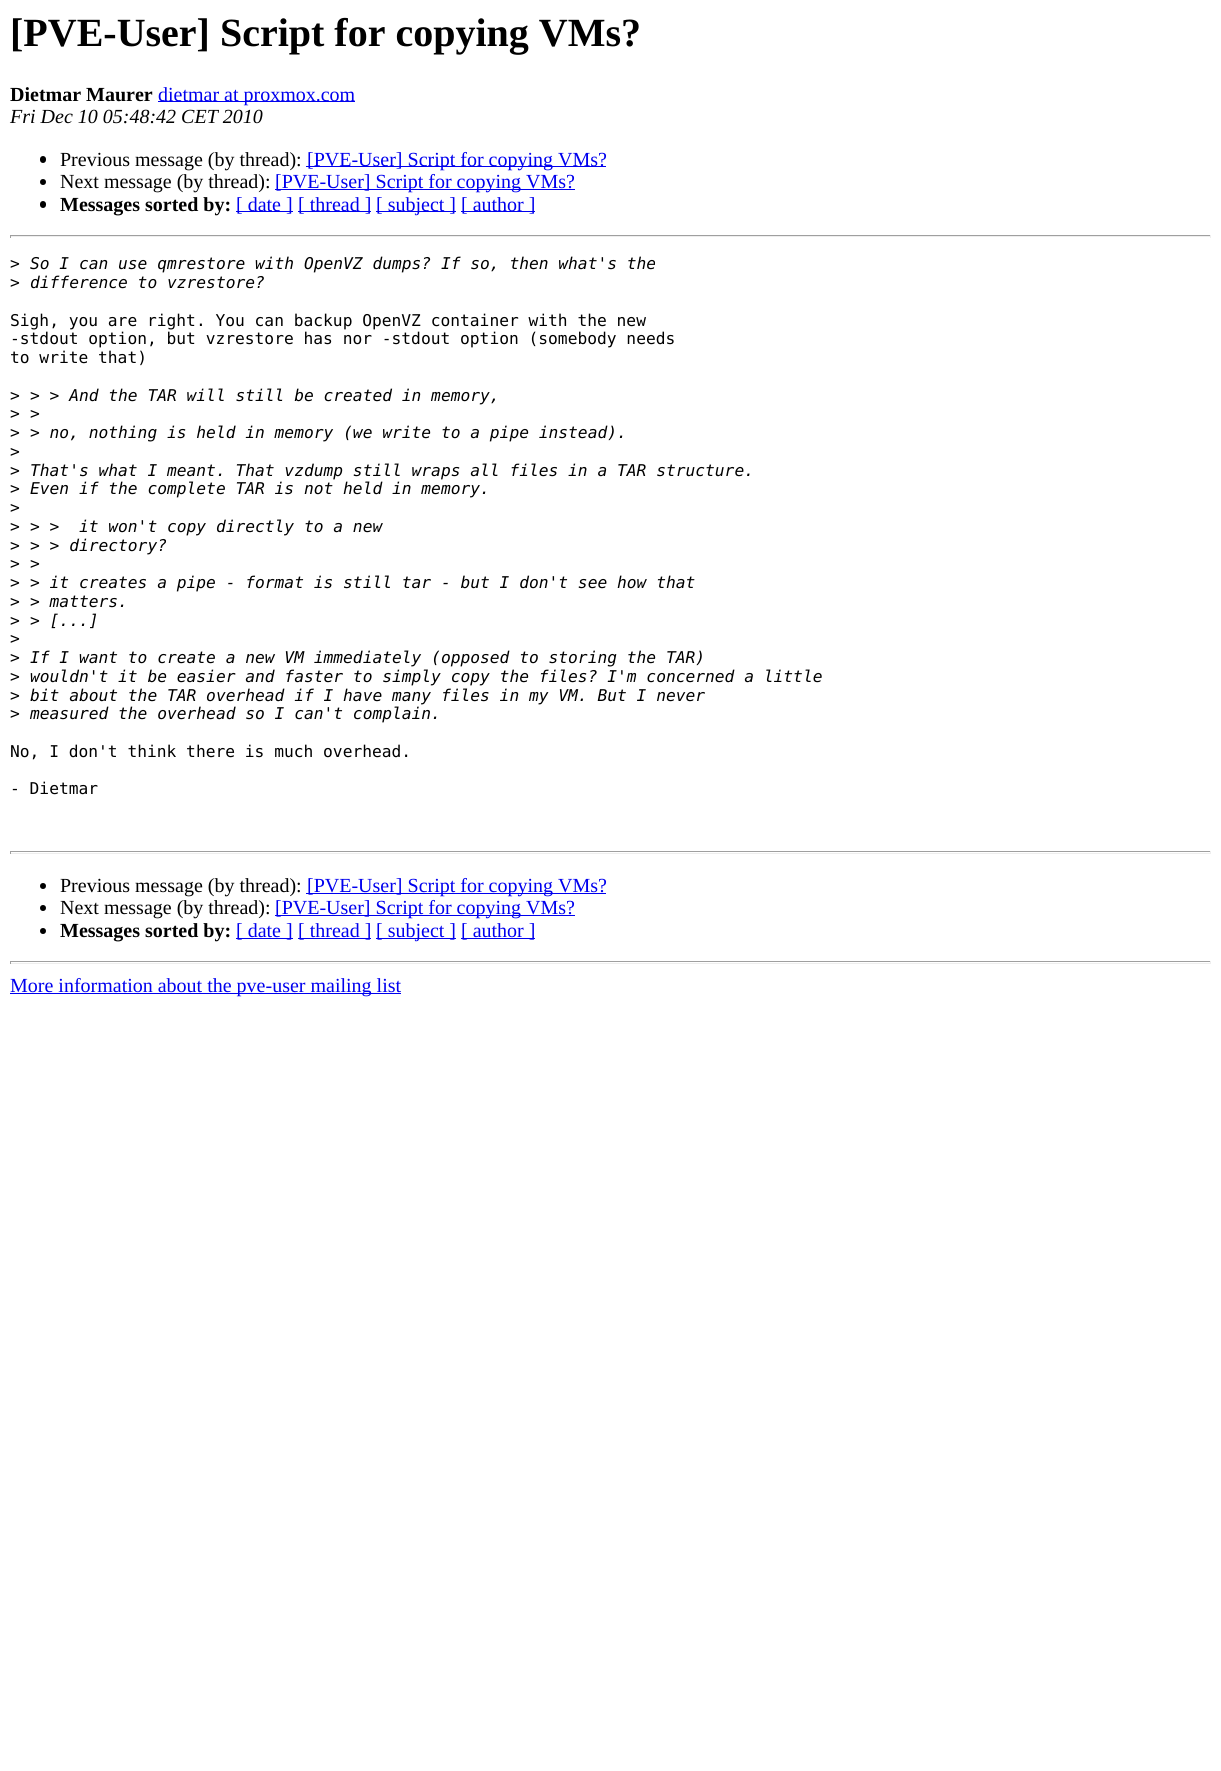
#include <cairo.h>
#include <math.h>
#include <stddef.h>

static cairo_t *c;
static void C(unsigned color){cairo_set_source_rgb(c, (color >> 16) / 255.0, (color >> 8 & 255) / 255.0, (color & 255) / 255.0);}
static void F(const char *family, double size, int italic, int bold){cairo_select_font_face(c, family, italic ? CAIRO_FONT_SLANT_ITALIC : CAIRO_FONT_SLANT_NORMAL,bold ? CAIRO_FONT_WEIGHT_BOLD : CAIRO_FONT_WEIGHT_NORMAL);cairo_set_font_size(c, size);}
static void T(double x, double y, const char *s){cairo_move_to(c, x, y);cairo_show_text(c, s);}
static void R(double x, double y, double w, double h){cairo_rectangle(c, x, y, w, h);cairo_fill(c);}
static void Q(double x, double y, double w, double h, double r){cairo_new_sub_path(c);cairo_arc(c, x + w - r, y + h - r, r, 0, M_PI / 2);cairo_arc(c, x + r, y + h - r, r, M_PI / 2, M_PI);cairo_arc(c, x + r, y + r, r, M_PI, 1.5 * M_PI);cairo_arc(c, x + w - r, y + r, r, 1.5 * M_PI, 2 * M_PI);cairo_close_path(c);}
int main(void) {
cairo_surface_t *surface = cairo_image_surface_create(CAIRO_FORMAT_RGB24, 1221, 1771);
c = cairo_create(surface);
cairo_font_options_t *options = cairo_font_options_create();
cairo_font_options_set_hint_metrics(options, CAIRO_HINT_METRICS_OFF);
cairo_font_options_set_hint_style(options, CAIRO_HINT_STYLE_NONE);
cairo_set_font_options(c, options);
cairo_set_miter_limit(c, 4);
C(0xffffff);
cairo_paint(c);
F("Liberation Serif",40,0,1);
C(0x000000);
T(10,46,"[PVE-User] Script for copying VMs?");
F("Liberation Serif",20,0,1);
T(10,101,"Dietmar Maurer");
C(0x0000ee);
R(158,101,197,1);
F("Liberation Serif",20,0,0);
T(158,101,"dietmar at proxmox.com");
F("Liberation Serif",20,1,0);
C(0x000000);
T(10,123,"Fri Dec 10 05:48:42 CET 2010");
Q(40,156,6,7,3);
cairo_fill(c);
F("Liberation Serif",20,0,0);
T(60,166,"Previous message (by thread):");
C(0x0000ee);
R(306,166,300,1);
T(307,166,"[PVE-User] Script for copying VMs?");
C(0x000000);
cairo_new_path(c);
cairo_arc(c,43,182,3,0,2 * M_PI);
cairo_fill(c);
T(60,188,"Next message (by thread):");
C(0x0000ee);
R(275,189,300,1);
T(275,188,"[PVE-User] Script for copying VMs?");
C(0x000000);
Q(40,201,6,7,3);
cairo_fill(c);
F("Liberation Serif",20,0,1);
T(60,211,"Messages sorted by:");
C(0x0000ee);
R(236,211,57,1);
F("Liberation Serif",20,0,0);
T(236,211,"[ date ]");
R(298,211,73,1);
T(298,211,"[ thread ]");
R(376,211,80,1);
T(376,211,"[ subject ]");
R(461,211,74,1);
T(461,211,"[ author ]");
C(0x9f9f9f);
R(10,235,1201,1);
C(0xeeeeee);
R(1210,235,1,3);
R(10,236,1201,1);
C(0x9f9f9f);
R(10,235,1,3);
F("DejaVu Sans Mono",16.25,0,0);
C(0x000000);
T(10,269,">");
F("DejaVu Sans Mono",16.25,1,0);
T(30,269,"So I can use qmrestore with OpenVZ dumps? If so, then what's the");
F("DejaVu Sans Mono",16.25,0,0);
T(10,288,">");
F("DejaVu Sans Mono",16.25,1,0);
T(30,288,"difference to vzrestore?");
F("DejaVu Sans Mono",16.25,0,0);
T(10,326,"Sigh, you are right. You can backup OpenVZ container with the new");
T(10,344,"-stdout option, but vzrestore has nor -stdout option (somebody needs");
T(10,363,"to write that)");
T(10,401,">");
F("DejaVu Sans Mono",16.25,1,0);
T(30,401,"> > And the TAR will still be created in memory,");
F("DejaVu Sans Mono",16.25,0,0);
T(10,419,">");
F("DejaVu Sans Mono",16.25,1,0);
T(30,419,">");
F("DejaVu Sans Mono",16.25,0,0);
T(10,438,">");
F("DejaVu Sans Mono",16.25,1,0);
T(30,438,"> no, nothing is held in memory (we write to a pipe instead).");
F("DejaVu Sans Mono",16.25,0,0);
T(10,457,">");
T(10,476,">");
F("DejaVu Sans Mono",16.25,1,0);
T(30,476,"That's what I meant. That vzdump still wraps all files in a TAR structure.");
F("DejaVu Sans Mono",16.25,0,0);
T(10,494,">");
F("DejaVu Sans Mono",16.25,1,0);
T(30,494,"Even if the complete TAR is not held in memory.");
F("DejaVu Sans Mono",16.25,0,0);
T(10,513,">");
T(10,532,">");
F("DejaVu Sans Mono",16.25,1,0);
T(30,532,"> >  it won't copy directly to a new");
F("DejaVu Sans Mono",16.25,0,0);
T(10,551,">");
F("DejaVu Sans Mono",16.25,1,0);
T(30,551,"> > directory?");
F("DejaVu Sans Mono",16.25,0,0);
T(10,569,">");
F("DejaVu Sans Mono",16.25,1,0);
T(30,569,">");
F("DejaVu Sans Mono",16.25,0,0);
T(10,588,">");
F("DejaVu Sans Mono",16.25,1,0);
T(30,588,"> it creates a pipe - format is still tar - but I don't see how that");
F("DejaVu Sans Mono",16.25,0,0);
T(10,607,">");
F("DejaVu Sans Mono",16.25,1,0);
T(30,607,"> matters.");
F("DejaVu Sans Mono",16.25,0,0);
T(10,626,">");
F("DejaVu Sans Mono",16.25,1,0);
T(30,626,"> [...]");
F("DejaVu Sans Mono",16.25,0,0);
T(10,644,">");
T(10,663,">");
F("DejaVu Sans Mono",16.25,1,0);
T(30,663,"If I want to create a new VM immediately (opposed to storing the TAR)");
F("DejaVu Sans Mono",16.25,0,0);
T(10,682,">");
F("DejaVu Sans Mono",16.25,1,0);
T(30,682,"wouldn't it be easier and faster to simply copy the files? I'm concerned a little");
F("DejaVu Sans Mono",16.25,0,0);
T(10,701,">");
F("DejaVu Sans Mono",16.25,1,0);
T(30,701,"bit about the TAR overhead if I have many files in my VM. But I never");
F("DejaVu Sans Mono",16.25,0,0);
T(10,719,">");
F("DejaVu Sans Mono",16.25,1,0);
T(30,719,"measured the overhead so I can't complain.");
F("DejaVu Sans Mono",16.25,0,0);
T(10,757,"No, I don't think there is much overhead.");
T(10,794,"- Dietmar");
C(0x9f9f9f);
R(10,851,1201,1);
C(0xeeeeee);
R(1210,851,1,3);
R(10,853,1201,1);
C(0x9f9f9f);
R(10,851,1,3);
C(0x000000);
cairo_new_path(c);
cairo_arc(c,43,886,3,0,2 * M_PI);
cairo_fill(c);
F("Liberation Serif",20,0,0);
T(60,892,"Previous message (by thread):");
C(0x0000ee);
R(306,893,300,1);
T(307,892,"[PVE-User] Script for copying VMs?");
C(0x000000);
cairo_new_path(c);
cairo_arc(c,43,908,3,0,2 * M_PI);
cairo_fill(c);
T(60,914,"Next message (by thread):");
C(0x0000ee);
R(275,915,300,1);
T(275,914,"[PVE-User] Script for copying VMs?");
C(0x000000);
cairo_new_path(c);
cairo_arc(c,43,931,3,0,2 * M_PI);
cairo_fill(c);
F("Liberation Serif",20,0,1);
T(60,937,"Messages sorted by:");
C(0x0000ee);
R(236,938,57,1);
F("Liberation Serif",20,0,0);
T(236,937,"[ date ]");
R(298,938,73,1);
T(298,937,"[ thread ]");
R(376,938,80,1);
T(376,937,"[ subject ]");
R(461,938,74,1);
T(461,937,"[ author ]");
C(0x9f9f9f);
R(10,961,1201,1);
C(0xeeeeee);
R(1210,961,1,3);
R(10,963,1201,1);
C(0x9f9f9f);
R(10,961,1,3);
C(0x0000ee);
R(10,993,391,1);
T(10,992,"More information about the pve-user mailing list");
cairo_surface_write_to_png(surface, "o.png");
cairo_font_options_destroy(options);
cairo_destroy(c);
cairo_surface_destroy(surface);
return 0;
}
